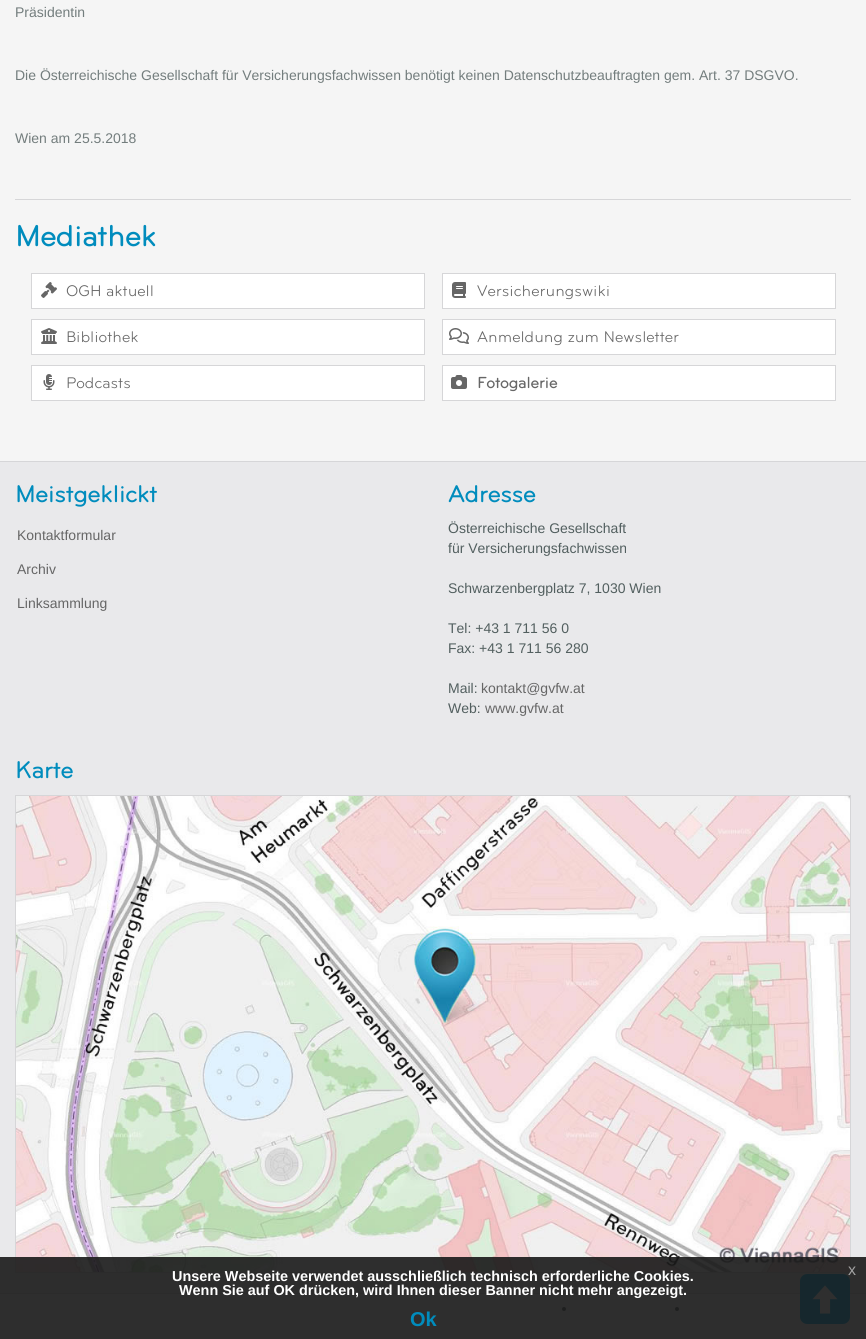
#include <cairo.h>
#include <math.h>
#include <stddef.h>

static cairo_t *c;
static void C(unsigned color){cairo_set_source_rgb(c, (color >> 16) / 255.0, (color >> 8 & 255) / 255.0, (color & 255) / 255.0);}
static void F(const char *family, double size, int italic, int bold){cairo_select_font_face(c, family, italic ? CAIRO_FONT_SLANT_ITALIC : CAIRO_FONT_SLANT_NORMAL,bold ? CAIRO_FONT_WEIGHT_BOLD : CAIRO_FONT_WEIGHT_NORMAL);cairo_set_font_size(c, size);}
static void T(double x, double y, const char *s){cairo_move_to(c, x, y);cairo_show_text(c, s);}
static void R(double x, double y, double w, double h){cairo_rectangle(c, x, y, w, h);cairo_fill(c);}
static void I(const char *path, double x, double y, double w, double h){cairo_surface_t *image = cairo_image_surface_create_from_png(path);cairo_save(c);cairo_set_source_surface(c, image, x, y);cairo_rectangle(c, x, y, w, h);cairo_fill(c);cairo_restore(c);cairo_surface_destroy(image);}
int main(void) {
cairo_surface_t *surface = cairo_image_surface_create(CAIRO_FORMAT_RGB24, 866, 1339);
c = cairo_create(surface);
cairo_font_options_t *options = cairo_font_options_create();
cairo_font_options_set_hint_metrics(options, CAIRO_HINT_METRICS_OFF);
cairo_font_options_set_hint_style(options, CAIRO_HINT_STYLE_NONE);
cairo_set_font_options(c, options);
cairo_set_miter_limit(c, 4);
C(0xf5f5f5);
cairo_paint(c);
F("Liberation Sans",14,0,0);
C(0x737d7d);
T(15,17,"Präsidentin");
T(15,80,"Die Österreichische Gesellschaft für Versicherungsfachwissen benötigt keinen Datenschutzbeauftragten gem. Art. 37 DSGVO.");
T(15,143,"Wien am 25.5.2018");
C(0xd6d6d8);
R(15,199,836,1);
F("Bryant",30,0,1);
C(0x008cbd);
T(15,246,"Mediathek");
C(0xffffff);
cairo_rectangle(c,31.5,273.5,393,35);
cairo_fill_preserve(c);
C(0xd6d6d8);
cairo_set_line_width(c,1);
cairo_stroke(c);
I("1.png",41,282,16,16);
F("Bryant",16,0,0);
C(0x666666);
T(66,296,"OGH aktuell");
C(0xffffff);
cairo_rectangle(c,442.5,273.5,393,35);
cairo_fill_preserve(c);
C(0xd6d6d8);
cairo_stroke(c);
I("2.png",452,282,14,16);
C(0x666666);
T(477,296,"Versicherungswiki");
C(0xffffff);
cairo_rectangle(c,31.5,319.5,393,35);
cairo_fill_preserve(c);
C(0xd6d6d8);
cairo_stroke(c);
I("3.png",41,328,16,16);
C(0x666666);
T(66,342,"Bibliothek");
C(0xffffff);
cairo_rectangle(c,442.5,319.5,393,35);
cairo_fill_preserve(c);
C(0xd6d6d8);
cairo_stroke(c);
I("4.png",449,328,20,16);
C(0x666666);
T(477,342,"Anmeldung zum Newsletter");
C(0xffffff);
cairo_rectangle(c,31.5,365.5,393,35);
cairo_fill_preserve(c);
C(0xd6d6d8);
cairo_stroke(c);
I("5.png",43,374,12,16);
C(0x666666);
T(66,388,"Podcasts");
C(0xffffff);
cairo_rectangle(c,442.5,365.5,393,35);
cairo_fill_preserve(c);
C(0xd6d6d8);
cairo_stroke(c);
I("6.png",451,375,16,14);
F("Bryant",16,0,1);
C(0x666666);
T(477,388,"Fotogalerie");
C(0xe9e9eb);
R(0,462,866,831);
C(0xd6d6d8);
R(0,461,866,1);
R(0,1293,866,1);
F("Bryant",24,0,1);
C(0x008cbd);
T(15,502,"Meistgeklickt");
F("Liberation Sans",14,0,0);
C(0x666666);
T(17,540,"Kontaktformular");
T(17,574,"Archiv");
T(17,608,"Linksammlung");
F("Bryant",24,0,1);
C(0x008cbd);
T(448,502,"Adresse");
F("Liberation Sans",14,0,0);
C(0x525f5f);
T(448,533,"Österreichische Gesellschaft");
T(448,553,"für Versicherungsfachwissen");
T(448,593,"Schwarzenbergplatz 7, 1030 Wien");
T(448,633,"Tel: +43 1 711 56 0");
T(448,653,"Fax: +43 1 711 56 280");
T(448,693,"Mail:");
C(0x666666);
T(481,693,"kontakt@gvfw.at");
C(0x525f5f);
T(448,713,"Web:");
C(0x666666);
T(485,713,"www.gvfw.at");
F("Bryant",24,0,1);
C(0x008cbd);
T(15,778,"Karte");
cairo_rectangle(c,15.5,795.5,835,477);
C(0xd6d6d8);
cairo_stroke(c);
I("7.png",16,796,834,476);
C(0x525f5f);
cairo_arc(c,564,1309,2,0,2 * M_PI);
cairo_fill(c);
cairo_arc(c,677,1309,2,0,2 * M_PI);
cairo_fill(c);
I("8.png",800,1274,50,50);
cairo_set_source_rgba(c,0.098,0.098,0.098,0.9);
R(0,1257,866,82);
F("Liberation Sans",14.4,0,1);
C(0xffffff);
T(172,1281,"Unsere Webseite verwendet ausschließlich technisch erforderliche Cookies.");
T(179,1295,"Wenn Sie auf OK drücken, wird Ihnen dieser Banner nicht mehr angezeigt.");
F("Liberation Sans",16,0,0);
C(0xa2a2a2);
T(848,1275,"x");
F("Liberation Sans",20,0,1);
C(0x008cbd);
T(410,1326,"Ok");
cairo_surface_write_to_png(surface, "o.png");
cairo_font_options_destroy(options);
cairo_destroy(c);
cairo_surface_destroy(surface);
return 0;
}
